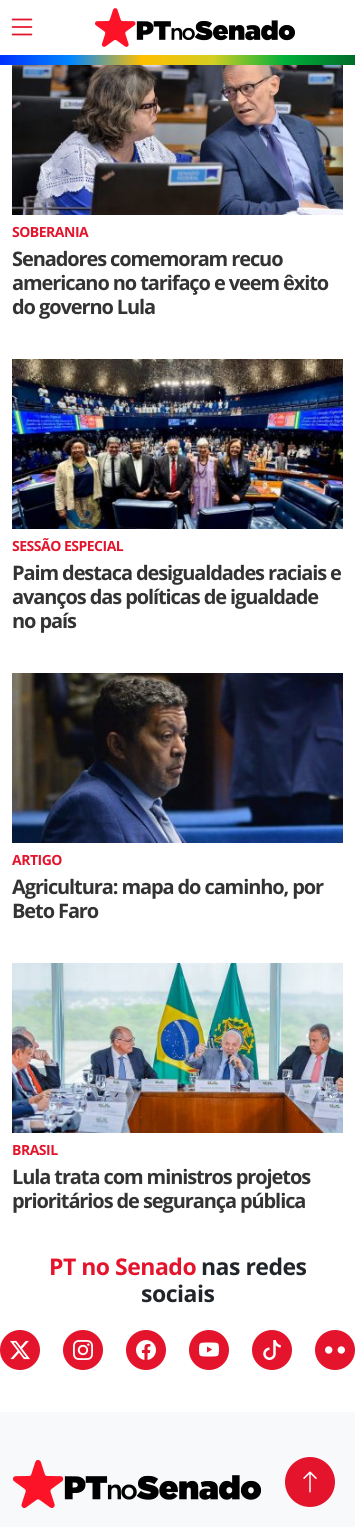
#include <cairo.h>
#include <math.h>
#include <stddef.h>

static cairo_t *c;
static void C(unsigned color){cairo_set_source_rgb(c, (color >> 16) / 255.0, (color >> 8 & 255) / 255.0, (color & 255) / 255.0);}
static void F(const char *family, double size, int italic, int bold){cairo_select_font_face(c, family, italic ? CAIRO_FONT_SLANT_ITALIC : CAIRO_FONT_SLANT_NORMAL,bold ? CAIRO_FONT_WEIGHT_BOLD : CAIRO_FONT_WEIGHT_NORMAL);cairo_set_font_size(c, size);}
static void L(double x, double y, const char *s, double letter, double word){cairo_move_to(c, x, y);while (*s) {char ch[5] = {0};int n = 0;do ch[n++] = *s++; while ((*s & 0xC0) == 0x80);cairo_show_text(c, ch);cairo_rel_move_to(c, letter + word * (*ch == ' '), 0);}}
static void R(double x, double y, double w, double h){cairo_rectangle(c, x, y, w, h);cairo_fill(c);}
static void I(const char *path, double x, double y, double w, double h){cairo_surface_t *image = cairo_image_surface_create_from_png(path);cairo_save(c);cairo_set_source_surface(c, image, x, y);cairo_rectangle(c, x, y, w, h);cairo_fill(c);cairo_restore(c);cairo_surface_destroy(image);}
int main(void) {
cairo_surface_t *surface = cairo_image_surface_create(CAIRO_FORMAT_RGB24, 355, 1527);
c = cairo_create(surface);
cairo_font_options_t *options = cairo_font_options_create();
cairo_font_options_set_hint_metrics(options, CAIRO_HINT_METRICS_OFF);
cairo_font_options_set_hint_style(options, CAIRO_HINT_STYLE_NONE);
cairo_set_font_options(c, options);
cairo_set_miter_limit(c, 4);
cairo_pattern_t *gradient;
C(0xffffff);
cairo_paint(c);
I("1.png",11,18,22,18);
I("2.png",95,8,200,39);
gradient = cairo_pattern_create_linear(0,60,355,60);
cairo_pattern_add_color_stop_rgba(gradient,0,0,0.188,1,1);
cairo_pattern_add_color_stop_rgba(gradient,.2,0,0.529,1,1);
cairo_pattern_add_color_stop_rgba(gradient,.4,1,0.749,0,1);
cairo_pattern_add_color_stop_rgba(gradient,.6,0.835,0.808,0.137,1);
cairo_pattern_add_color_stop_rgba(gradient,.8,0,0.694,0.227,1);
cairo_pattern_add_color_stop_rgba(gradient,1,0.004,0.424,0.161,1);
cairo_set_source(c,gradient);
cairo_pattern_destroy(gradient);
R(0,55,355,10);
I("3.png",12,65,331,150);
F("Open Sans",14,0,1);
C(0xe4142c);
L(12,237,"SOBERANIA",-.5,0);
F("Open Sans",20,0,1);
C(0x333333);
L(12,266,"Senadores comemoram recuo",-1.1,0);
L(12,290,"americano no tarifaço e veem êxito",-1.1,0);
L(12,314,"do governo Lula",-1.1,0);
I("4.png",12,359,331,170);
F("Open Sans",14,0,1);
C(0xe4142c);
L(12,551,"SESSÃO ESPECIAL",-.5,0);
F("Open Sans",20,0,1);
C(0x333333);
L(12,580,"Paim destaca desigualdades raciais e",-1.1,0);
L(12,604,"avanços das políticas de igualdade",-1.1,0);
L(12,628,"no país",-1.1,0);
I("5.png",12,673,331,170);
F("Open Sans",14,0,1);
C(0xe4142c);
L(12,865,"ARTIGO",-.5,0);
F("Open Sans",20,0,1);
C(0x333333);
L(12,894,"Agricultura: mapa do caminho, por",-1.1,0);
L(12,918,"Beto Faro",-1.1,0);
I("6.png",12,963,331,170);
F("Open Sans",14,0,1);
C(0xe4142c);
L(12,1155,"BRASIL",-.5,0);
F("Open Sans",20,0,1);
C(0x333333);
L(12,1184,"Lula trata com ministros projetos",-1.1,0);
L(12,1208,"prioritários de segurança pública",-1.1,0);
F("Open Sans",23,0,1);
C(0xe4142c);
L(49,1275,"PT no Senado",-.5,0);
C(0x212529);
L(201,1275,"nas redes",-.5,0);
L(141,1302,"sociais",-.5,0);
C(0xe4142c);
cairo_new_path(c);
cairo_arc(c,20,1350,20,0,2 * M_PI);
cairo_fill(c);
I("7.png",10,1340,20,20);
cairo_arc(c,83,1350,20,0,2 * M_PI);
cairo_fill(c);
I("8.png",73,1340,20,20);
cairo_arc(c,146,1350,20,0,2 * M_PI);
cairo_fill(c);
I("9.png",136,1340,20,20);
cairo_arc(c,209,1350,20,0,2 * M_PI);
cairo_fill(c);
I("10.png",199,1342,20,15);
cairo_arc(c,272,1350,20,0,2 * M_PI);
cairo_fill(c);
I("11.png",263,1340,18,20);
cairo_arc(c,335,1350,20,0,2 * M_PI);
cairo_fill(c);
I("12.png",325,1346,20,8);
C(0xf8f9fa);
R(0,1412,355,115);
I("13.png",13,1460,249,48);
C(0xe4142c);
cairo_arc(c,310,1482,25,0,2 * M_PI);
cairo_fill(c);
I("14.png",303,1471,14,22);
cairo_surface_write_to_png(surface, "o.png");
cairo_font_options_destroy(options);
cairo_destroy(c);
cairo_surface_destroy(surface);
return 0;
}
